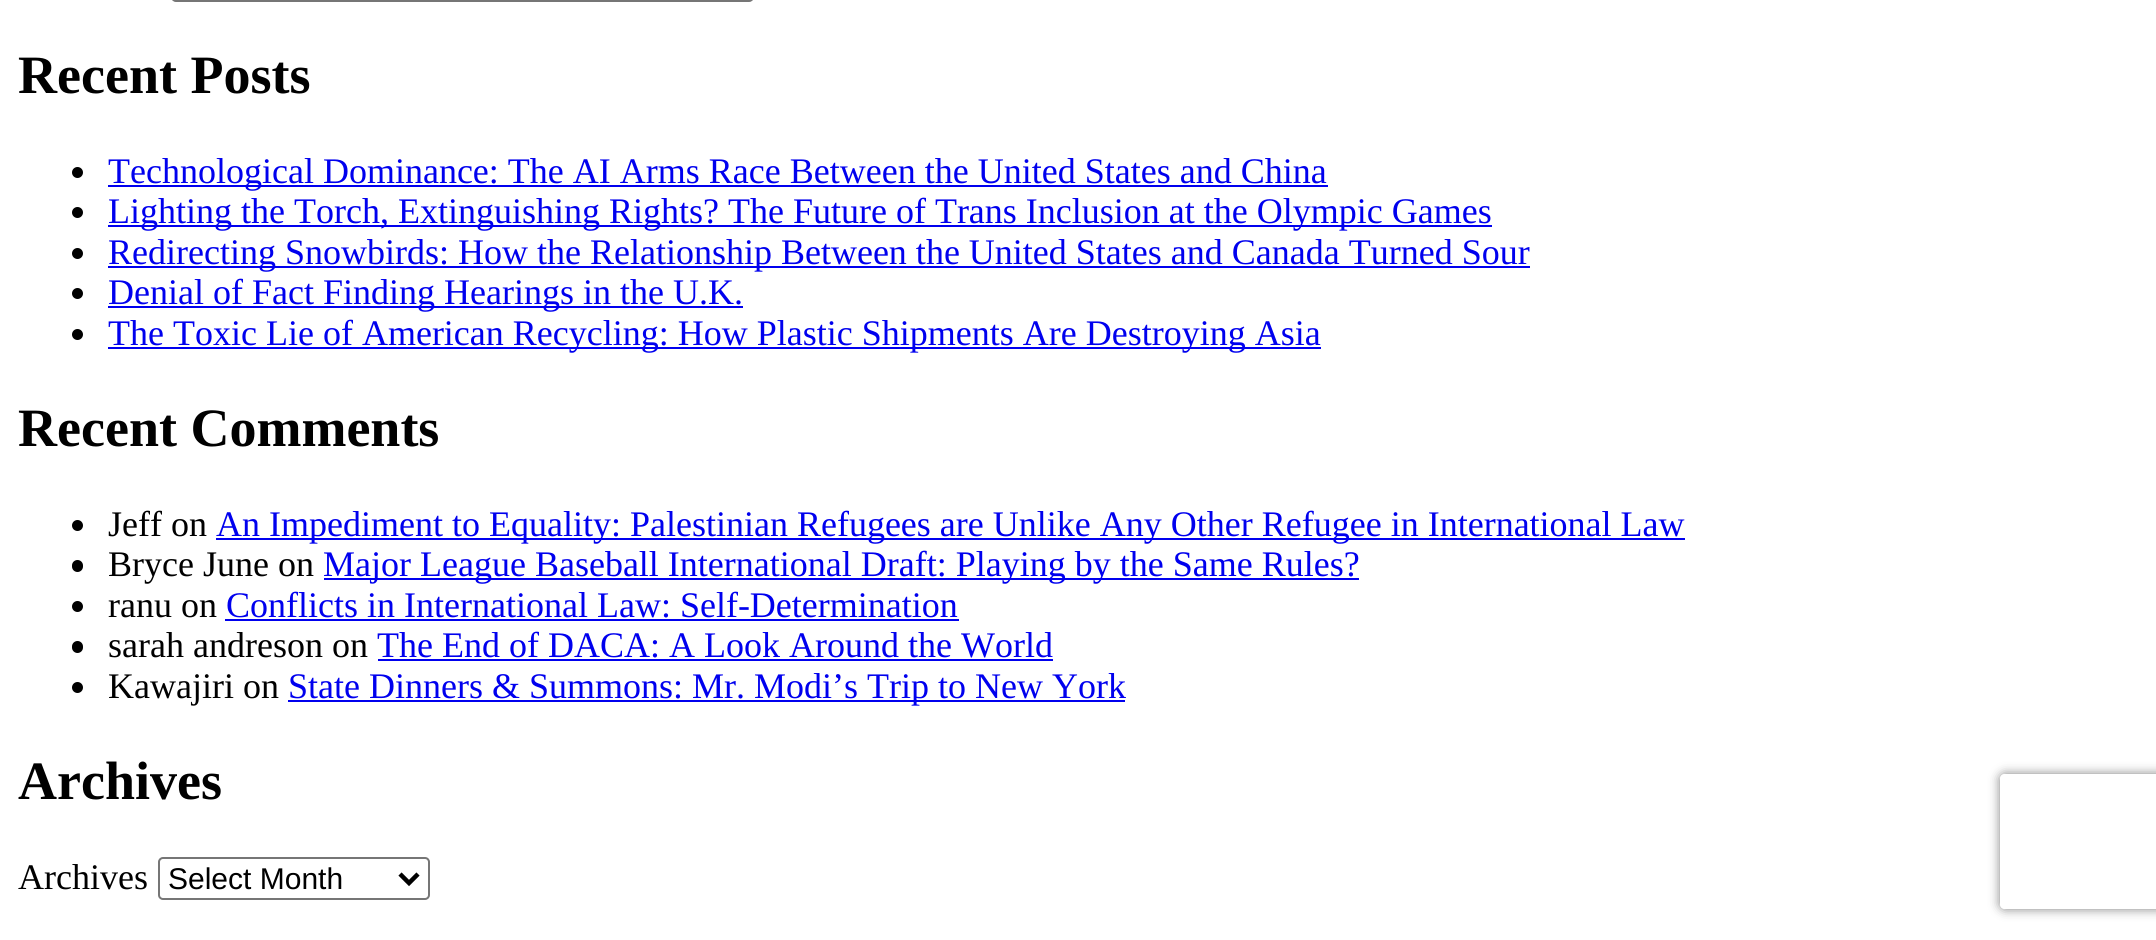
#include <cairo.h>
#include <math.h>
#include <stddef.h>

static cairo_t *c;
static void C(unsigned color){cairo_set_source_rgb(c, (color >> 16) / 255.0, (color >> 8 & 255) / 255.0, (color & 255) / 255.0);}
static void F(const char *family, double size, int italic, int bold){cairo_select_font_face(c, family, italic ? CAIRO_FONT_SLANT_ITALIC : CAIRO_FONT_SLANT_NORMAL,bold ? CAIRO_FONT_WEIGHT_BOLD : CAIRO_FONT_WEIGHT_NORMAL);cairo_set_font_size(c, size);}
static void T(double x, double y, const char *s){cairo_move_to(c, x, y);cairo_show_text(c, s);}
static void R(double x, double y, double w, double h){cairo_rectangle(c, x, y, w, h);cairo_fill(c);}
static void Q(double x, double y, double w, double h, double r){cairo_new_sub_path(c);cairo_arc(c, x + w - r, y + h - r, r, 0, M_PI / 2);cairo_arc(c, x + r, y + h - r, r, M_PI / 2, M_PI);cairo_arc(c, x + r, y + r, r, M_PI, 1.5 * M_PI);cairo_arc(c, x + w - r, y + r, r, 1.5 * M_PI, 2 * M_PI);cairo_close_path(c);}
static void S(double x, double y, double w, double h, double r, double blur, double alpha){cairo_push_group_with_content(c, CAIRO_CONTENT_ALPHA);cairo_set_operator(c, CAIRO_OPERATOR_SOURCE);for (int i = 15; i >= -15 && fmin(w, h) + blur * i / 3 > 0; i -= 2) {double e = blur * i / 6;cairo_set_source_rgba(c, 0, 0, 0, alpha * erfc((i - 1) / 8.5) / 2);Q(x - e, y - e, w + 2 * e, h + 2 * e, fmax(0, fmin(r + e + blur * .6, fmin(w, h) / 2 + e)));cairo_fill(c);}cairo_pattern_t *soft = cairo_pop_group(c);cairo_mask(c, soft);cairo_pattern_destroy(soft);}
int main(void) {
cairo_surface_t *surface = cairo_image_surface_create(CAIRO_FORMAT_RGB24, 2156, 940);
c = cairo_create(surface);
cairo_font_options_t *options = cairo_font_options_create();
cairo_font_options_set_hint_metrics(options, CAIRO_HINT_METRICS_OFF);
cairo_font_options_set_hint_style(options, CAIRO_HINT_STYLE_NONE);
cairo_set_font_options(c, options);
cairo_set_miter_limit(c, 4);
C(0xffffff);
cairo_paint(c);
Q(172,-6,581,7,4);
C(0x767676);
cairo_stroke(c);
F("Liberation Serif",54,0,1);
C(0x000000);
T(18,93,"Recent Posts");
cairo_new_path(c);
cairo_arc(c,77.5,172.5,5.5,0,2 * M_PI);
cairo_fill(c);
C(0x0000ee);
R(108,185,1220,2);
F("Liberation Serif",36,0,0);
T(108,183,"Technological Dominance: The AI Arms Race Between the United States and China");
C(0x000000);
cairo_new_path(c);
cairo_arc(c,77.5,212.5,5.5,0,2 * M_PI);
cairo_fill(c);
C(0x0000ee);
R(108,225,1384,2);
T(108,223,"Lighting the Torch, Extinguishing Rights? The Future of Trans Inclusion at the Olympic Games");
C(0x000000);
cairo_new_path(c);
cairo_arc(c,77.5,253.5,5.5,0,2 * M_PI);
cairo_fill(c);
C(0x0000ee);
R(108,266,1422,2);
T(108,264,"Redirecting Snowbirds: How the Relationship Between the United States and Canada Turned Sour");
C(0x000000);
cairo_new_path(c);
cairo_arc(c,77.5,293.5,5.5,0,2 * M_PI);
cairo_fill(c);
C(0x0000ee);
R(108,306,635,2);
T(108,304,"Denial of Fact Finding Hearings in the U.K.");
C(0x000000);
cairo_new_path(c);
cairo_arc(c,77.5,334.5,5.5,0,2 * M_PI);
cairo_fill(c);
C(0x0000ee);
R(108,347,1213,2);
T(108,345,"The Toxic Lie of American Recycling: How Plastic Shipments Are Destroying Asia");
F("Liberation Serif",54,0,1);
C(0x000000);
T(18,446,"Recent Comments");
cairo_new_path(c);
cairo_arc(c,77.5,525.5,5.5,0,2 * M_PI);
cairo_fill(c);
F("Liberation Serif",36,0,0);
T(108,536,"Jeff on");
C(0x0000ee);
R(216,538,1469,2);
T(216,536,"An Impediment to Equality: Palestinian Refugees are Unlike Any Other Refugee in International Law");
C(0x000000);
Q(72,560,11,12,5.5);
cairo_fill(c);
T(108,576,"Bryce June on");
C(0x0000ee);
R(324,578,1035,2);
T(323,576,"Major League Baseball International Draft: Playing by the Same Rules?");
C(0x000000);
cairo_new_path(c);
cairo_arc(c,77.5,606.5,5.5,0,2 * M_PI);
cairo_fill(c);
T(108,617,"ranu on");
C(0x0000ee);
T(226,617,"Conflicts in International Law: Self-Determination");
R(225,619,734,2);
C(0x000000);
Q(72,641,11,12,5.5);
cairo_fill(c);
T(108,657,"sarah andreson on");
C(0x0000ee);
T(377,657,"The End of DACA: A Look Around the World");
R(378,659,675,2);
C(0x000000);
cairo_new_path(c);
cairo_arc(c,77.5,687.5,5.5,0,2 * M_PI);
cairo_fill(c);
T(108,698,"Kawajiri on");
C(0x0000ee);
R(288,700,837,2);
T(288,698,"State Dinners & Summons: Mr. Modi’s Trip to New York");
F("Liberation Serif",54,0,1);
C(0x000000);
T(18,799,"Archives");
F("Liberation Serif",36,0,0);
T(18,889,"Archives");
Q(159,858,270,41,4);
C(0x767676);
cairo_stroke(c);
cairo_new_path(c);
cairo_move_to(c,400,874);
cairo_line_to(c,409,883);
cairo_line_to(c,418,874);
C(0x000000);
cairo_set_line_width(c,4.5);
cairo_stroke(c);
F("Liberation Sans",30,0,0);
T(168,889,"Select Month");
cairo_save(c);
cairo_set_fill_rule(c,CAIRO_FILL_RULE_EVEN_ODD);
cairo_new_path(c);
cairo_move_to(c,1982,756);
cairo_line_to(c,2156,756);
cairo_line_to(c,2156,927);
cairo_line_to(c,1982,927);
cairo_close_path(c);
cairo_move_to(c,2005,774);
cairo_line_to(c,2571,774);
cairo_curve_to(c,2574,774,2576,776,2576,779);
cairo_line_to(c,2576,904);
cairo_curve_to(c,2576,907,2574,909,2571,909);
cairo_line_to(c,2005,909);
cairo_curve_to(c,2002,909,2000,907,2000,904);
cairo_line_to(c,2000,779);
cairo_curve_to(c,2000,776,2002,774,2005,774);
cairo_close_path(c);
cairo_clip(c);
C(0x808080);
S(2000,774,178,135,5,5.5,1);
cairo_restore(c);
cairo_surface_write_to_png(surface, "o.png");
cairo_font_options_destroy(options);
cairo_destroy(c);
cairo_surface_destroy(surface);
return 0;
}
